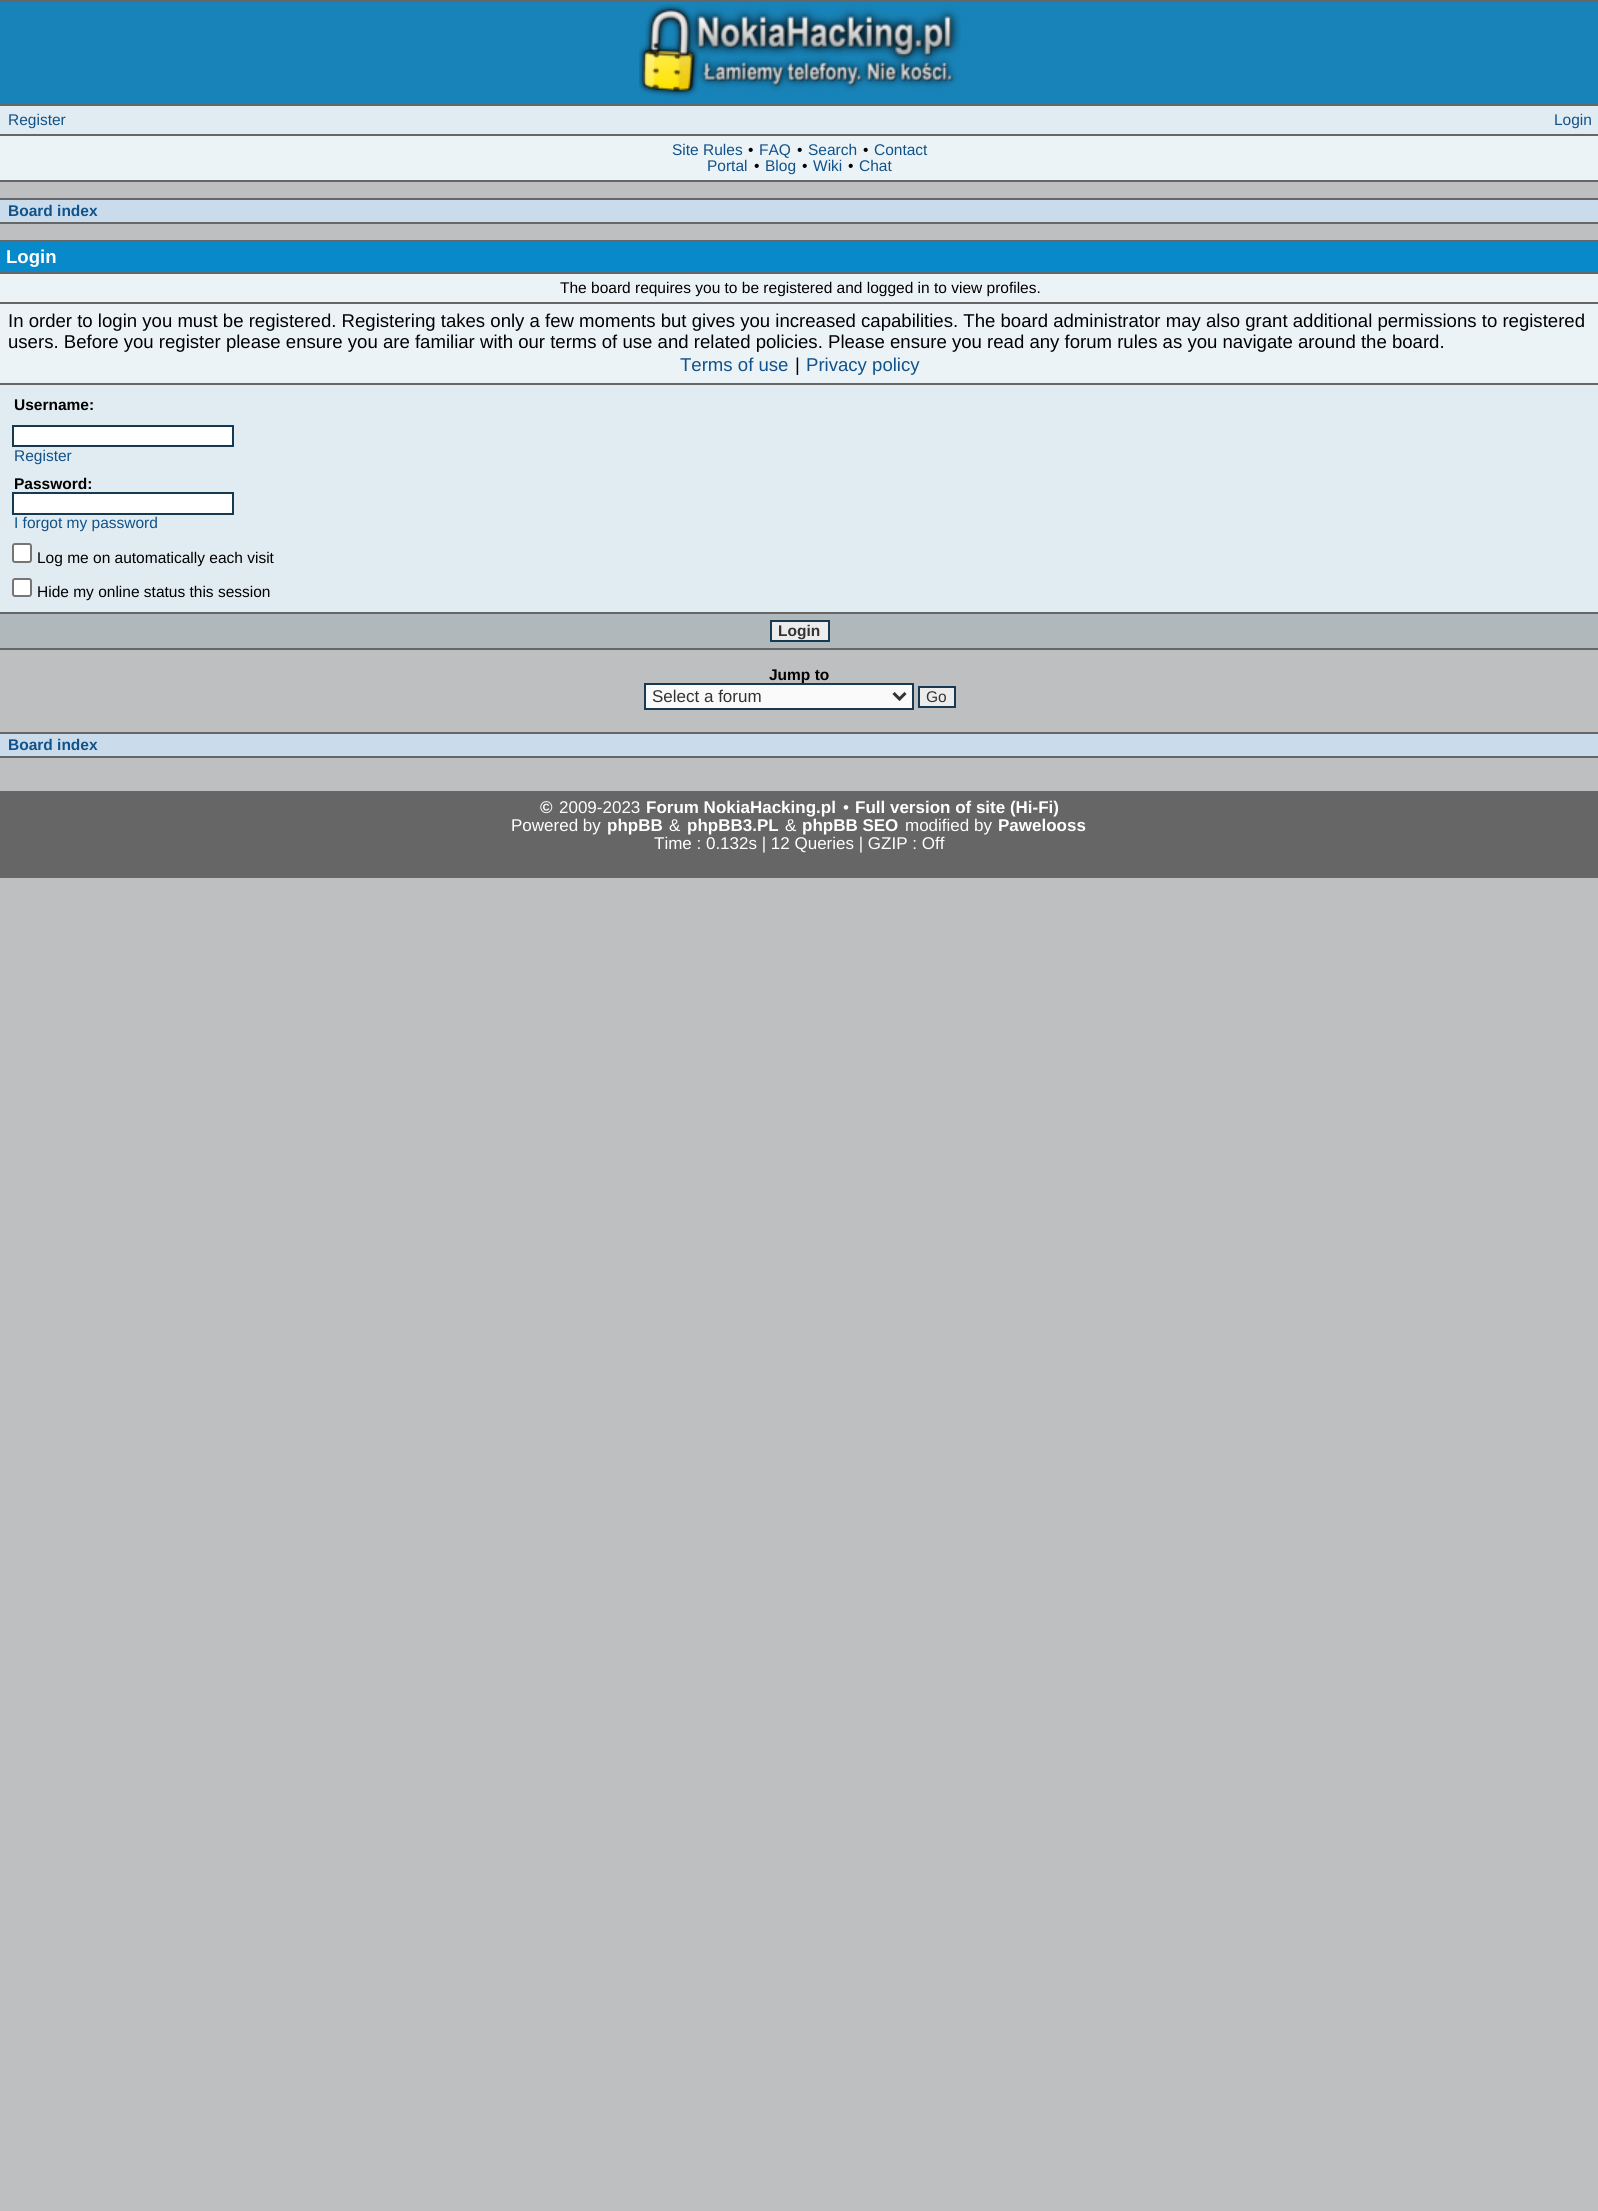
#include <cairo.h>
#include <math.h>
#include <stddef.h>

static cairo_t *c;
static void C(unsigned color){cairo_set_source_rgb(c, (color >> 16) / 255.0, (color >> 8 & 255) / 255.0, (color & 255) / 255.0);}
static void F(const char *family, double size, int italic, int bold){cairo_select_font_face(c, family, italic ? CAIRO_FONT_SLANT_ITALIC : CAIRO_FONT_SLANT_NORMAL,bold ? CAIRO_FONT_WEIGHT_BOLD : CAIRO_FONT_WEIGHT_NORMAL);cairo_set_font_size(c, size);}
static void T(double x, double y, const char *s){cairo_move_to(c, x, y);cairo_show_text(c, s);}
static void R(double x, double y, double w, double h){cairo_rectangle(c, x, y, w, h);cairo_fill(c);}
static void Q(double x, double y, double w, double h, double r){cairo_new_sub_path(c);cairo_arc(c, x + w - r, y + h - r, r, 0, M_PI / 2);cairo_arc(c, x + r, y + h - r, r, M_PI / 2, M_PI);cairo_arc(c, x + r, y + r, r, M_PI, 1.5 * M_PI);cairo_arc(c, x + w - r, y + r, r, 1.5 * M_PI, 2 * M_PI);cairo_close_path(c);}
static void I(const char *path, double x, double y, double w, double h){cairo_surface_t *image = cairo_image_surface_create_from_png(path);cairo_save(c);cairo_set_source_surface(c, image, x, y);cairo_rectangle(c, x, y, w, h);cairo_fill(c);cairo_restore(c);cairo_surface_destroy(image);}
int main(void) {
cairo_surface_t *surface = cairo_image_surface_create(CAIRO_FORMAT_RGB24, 1598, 2211);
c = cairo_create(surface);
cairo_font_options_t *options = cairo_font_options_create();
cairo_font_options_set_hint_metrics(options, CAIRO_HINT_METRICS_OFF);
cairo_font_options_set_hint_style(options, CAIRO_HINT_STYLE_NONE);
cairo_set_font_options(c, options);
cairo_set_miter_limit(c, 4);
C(0xbebfc1);
cairo_paint(c);
C(0x666666);
R(0,0,1598,2);
C(0x1883b8);
R(0,2,1598,102);
I("1.png",639,4,322,93);
C(0x666666);
R(0,104,1598,2);
C(0xe1ebf2);
R(0,106,1598,28);
F("Liberation Sans",15.5,0,0);
C(0x105289);
T(8,125,"Register");
T(1554,125,"Login");
C(0x666666);
R(0,134,1598,2);
C(0xecf3f7);
R(0,136,1598,44);
C(0x105289);
T(672,155,"Site Rules");
C(0x000000);
T(748,155,"•");
C(0x105289);
T(759,155,"FAQ");
C(0x000000);
T(797,155,"•");
C(0x105289);
T(808,155,"Search");
C(0x000000);
T(863,155,"•");
C(0x105289);
T(874,155,"Contact");
T(707,171,"Portal");
C(0x000000);
T(754,171,"•");
C(0x105289);
T(765,171,"Blog");
C(0x000000);
T(802,171,"•");
C(0x105289);
T(813,171,"Wiki");
C(0x000000);
T(848,171,"•");
C(0x105289);
T(859,171,"Chat");
C(0x666666);
R(0,180,1598,2);
R(0,198,1598,2);
C(0xcadceb);
R(0,200,1598,22);
F("Liberation Sans",15.5,0,1);
C(0x105289);
T(8,216,"Board index");
C(0x666666);
R(0,222,1598,2);
R(0,240,1598,2);
C(0x0889c9);
R(0,242,1598,30);
F("Liberation Sans",18.58,0,1);
C(0xffffff);
T(6,263,"Login");
C(0x666666);
R(0,272,1598,2);
C(0xecf3f7);
R(0,274,1598,28);
F("Liberation Sans",15.5,0,0);
C(0x000000);
T(560,293,"The board requires you to be registered and logged in to view profiles.");
C(0x666666);
R(0,302,1598,2);
C(0xecf3f7);
R(0,304,1598,79);
F("Liberation Sans",18.58,0,0);
C(0x000000);
T(8,327,"In order to login you must be registered. Registering takes only a few moments but gives you increased capabilities. The board administrator may also grant additional permissions to registered");
T(8,348,"users. Before you register please ensure you are familiar with our terms of use and related policies. Please ensure you read any forum rules as you navigate around the board.");
C(0x105289);
T(680,371,"Terms of use");
C(0x000000);
T(795,371,"|");
C(0x105289);
T(806,371,"Privacy policy");
C(0x666666);
R(0,383,1598,2);
C(0xe1ebf2);
R(0,385,1598,227);
F("Liberation Sans",15.5,0,1);
C(0x000000);
T(14,410,"Username:");
C(0xffffff);
cairo_rectangle(c,13,426,220,20);
cairo_fill_preserve(c);
C(0x173a52);
cairo_stroke(c);
F("Liberation Sans",15.5,0,0);
C(0x105289);
T(14,461,"Register");
F("Liberation Sans",15.5,0,1);
C(0x000000);
T(14,489,"Password:");
C(0xffffff);
cairo_rectangle(c,13,493,220,21);
cairo_fill_preserve(c);
C(0x173a52);
cairo_stroke(c);
F("Liberation Sans",15.5,0,0);
C(0x105289);
T(14,528,"I forgot my password");
C(0xffffff);
Q(13,544,18,18,2);
cairo_fill_preserve(c);
C(0x767676);
cairo_stroke(c);
C(0x000000);
T(37,563,"Log me on automatically each visit");
C(0xffffff);
Q(13,579,18,17,2);
cairo_fill_preserve(c);
C(0x767676);
cairo_stroke(c);
C(0x000000);
T(37,597,"Hide my online status this session");
C(0x666666);
R(0,612,1598,2);
C(0xb0b8bb);
R(0,614,1598,34);
C(0xececec);
cairo_rectangle(c,771,621,58,20);
cairo_fill_preserve(c);
C(0x173a52);
cairo_stroke(c);
F("Liberation Sans",15.5,0,1);
C(0x333333);
T(778,636,"Login");
C(0x666666);
R(0,648,1598,2);
C(0x000000);
T(769,680,"Jump to");
C(0xfafafa);
cairo_rectangle(c,645,684,268,25);
cairo_fill_preserve(c);
C(0x173a52);
cairo_stroke(c);
cairo_new_path(c);
cairo_move_to(c,893.5,693);
cairo_line_to(c,899.5,699);
cairo_line_to(c,905.5,693);
C(0x333333);
cairo_set_line_width(c,3);
cairo_stroke(c);
F("Liberation Sans",17,0,0);
T(652,702,"Select a forum");
C(0xececec);
cairo_rectangle(c,919,687,36,20);
cairo_fill_preserve(c);
C(0x173a52);
cairo_set_line_width(c,2);
cairo_stroke(c);
F("Liberation Sans",15.5,0,0);
C(0x333333);
T(926,702,"Go");
C(0x666666);
R(0,732,1598,2);
C(0xcadceb);
R(0,734,1598,22);
F("Liberation Sans",15.5,0,1);
C(0x105289);
T(8,750,"Board index");
C(0x666666);
R(0,756,1598,2);
R(0,791,1598,87);
F("Liberation Sans",17,0,1);
C(0xffffff);
T(540,813,"©");
F("Liberation Sans",17,0,0);
T(559,813,"2009-2023");
F("Liberation Sans",17,0,1);
T(646,813,"Forum NokiaHacking.pl");
F("Liberation Sans",17,0,0);
T(843,813,"•");
F("Liberation Sans",17,0,1);
T(855,813,"Full version of site (Hi-Fi)");
F("Liberation Sans",17,0,0);
T(511,831,"Powered by");
F("Liberation Sans",17,0,1);
T(607,831,"phpBB");
F("Liberation Sans",17,0,0);
T(669,831,"&");
F("Liberation Sans",17,0,1);
T(687,831,"phpBB3.PL");
F("Liberation Sans",17,0,0);
T(785,831,"&");
F("Liberation Sans",17,0,1);
T(802,831,"phpBB SEO");
F("Liberation Sans",17,0,0);
T(905,831,"modified by");
F("Liberation Sans",17,0,1);
T(998,831,"Pawelooss");
F("Liberation Sans",17,0,0);
T(654,849,"Time : 0.132s | 12 Queries | GZIP : Off");
cairo_surface_write_to_png(surface, "o.png");
cairo_font_options_destroy(options);
cairo_destroy(c);
cairo_surface_destroy(surface);
return 0;
}
